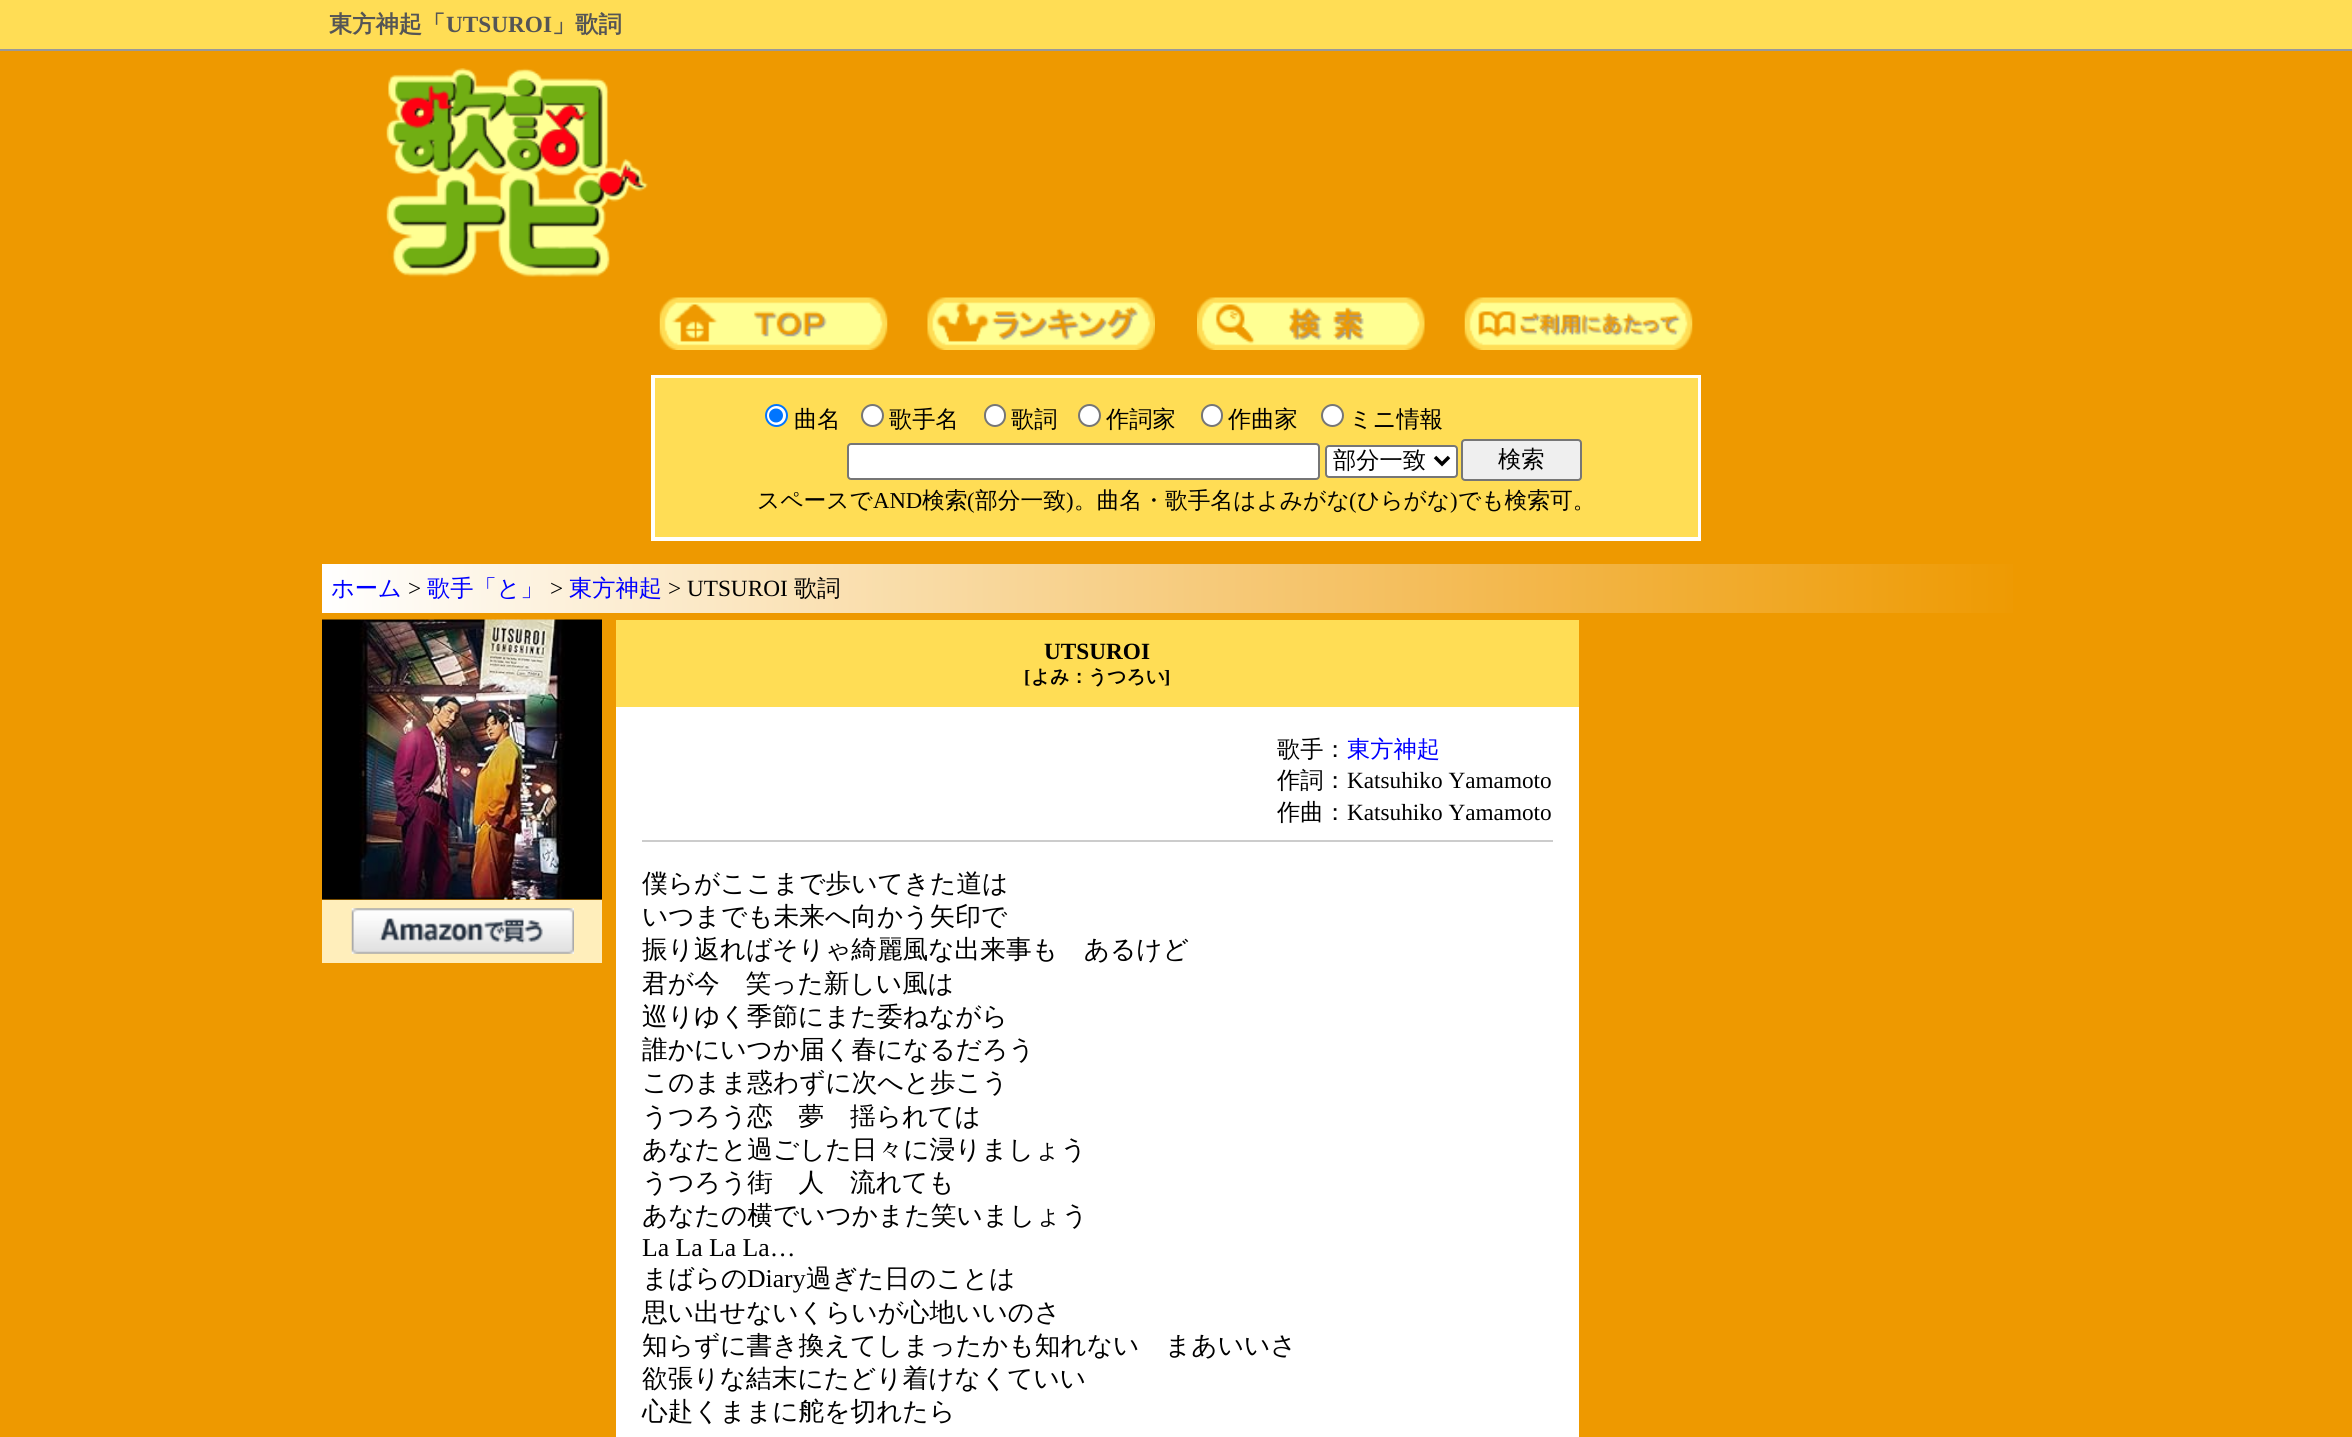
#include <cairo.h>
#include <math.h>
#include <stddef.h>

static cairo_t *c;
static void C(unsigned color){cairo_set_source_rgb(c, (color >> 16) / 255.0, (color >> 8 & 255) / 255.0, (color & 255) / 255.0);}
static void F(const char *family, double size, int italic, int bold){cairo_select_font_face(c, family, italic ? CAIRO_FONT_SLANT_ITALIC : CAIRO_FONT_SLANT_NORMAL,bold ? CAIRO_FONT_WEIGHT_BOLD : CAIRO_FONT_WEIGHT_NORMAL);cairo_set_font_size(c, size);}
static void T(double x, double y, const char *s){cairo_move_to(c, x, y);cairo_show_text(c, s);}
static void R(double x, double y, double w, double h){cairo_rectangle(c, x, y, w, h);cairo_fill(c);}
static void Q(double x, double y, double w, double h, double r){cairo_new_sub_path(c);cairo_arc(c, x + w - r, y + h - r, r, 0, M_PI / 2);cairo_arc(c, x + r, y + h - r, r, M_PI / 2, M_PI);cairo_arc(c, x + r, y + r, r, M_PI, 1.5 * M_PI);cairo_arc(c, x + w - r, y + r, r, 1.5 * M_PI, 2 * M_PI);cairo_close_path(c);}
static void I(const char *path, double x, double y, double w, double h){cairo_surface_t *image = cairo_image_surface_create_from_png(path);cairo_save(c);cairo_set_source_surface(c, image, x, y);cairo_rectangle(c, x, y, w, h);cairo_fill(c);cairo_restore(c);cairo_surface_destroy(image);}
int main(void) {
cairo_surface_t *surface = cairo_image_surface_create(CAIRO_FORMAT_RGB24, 2352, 1437);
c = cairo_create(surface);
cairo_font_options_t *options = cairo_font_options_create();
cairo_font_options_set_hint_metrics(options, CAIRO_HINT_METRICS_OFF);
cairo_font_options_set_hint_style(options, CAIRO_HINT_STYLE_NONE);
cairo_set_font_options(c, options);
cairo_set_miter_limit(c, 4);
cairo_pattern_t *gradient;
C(0xee9900);
cairo_paint(c);
C(0xffdd55);
R(0,0,2352,49);
C(0x999999);
R(0,49,2352,2);
F("WenQuanYi Zen Hei",23.25,0,1);
C(0x555555);
T(329,32,"東方神起「");
F("Liberation Serif",23.25,0,1);
T(446,32,"UTSUROI");
F("WenQuanYi Zen Hei",23.25,0,1);
T(552,32,"」歌詞");
I("1.png",386,68,262,209);
I("2.png",659,297,229,53);
I("3.png",927,297,228,53);
I("4.png",1197,297,228,53);
I("5.png",1464,297,229,53);
C(0xffffff);
R(651,375,1050,166);
C(0xffdd55);
R(655,378,1043,159);
C(0xffffff);
cairo_arc(c,776.5,415.5,10.5,0,2 * M_PI);
cairo_fill_preserve(c);
C(0x0075ff);
cairo_stroke(c);
cairo_arc(c,776,415.5,7,0,2 * M_PI);
cairo_fill(c);
F("WenQuanYi Zen Hei Medium",23.25,0,0);
C(0x000000);
T(794,427,"曲名");
C(0xffffff);
cairo_new_path(c);
cairo_arc(c,872.5,415.5,10.5,0,2 * M_PI);
cairo_fill_preserve(c);
C(0x767676);
cairo_stroke(c);
C(0x000000);
T(889,427,"歌手名");
C(0xffffff);
Q(985,405,20,21,10);
cairo_fill_preserve(c);
C(0x767676);
cairo_stroke(c);
C(0x000000);
T(1011,427,"歌詞");
C(0xffffff);
cairo_new_path(c);
cairo_arc(c,1089.5,415.5,10.5,0,2 * M_PI);
cairo_fill_preserve(c);
C(0x767676);
cairo_stroke(c);
C(0x000000);
T(1106,427,"作詞家");
C(0xffffff);
Q(1202,405,20,21,10);
cairo_fill_preserve(c);
C(0x767676);
cairo_stroke(c);
C(0x000000);
T(1228,427,"作曲家");
C(0xffffff);
cairo_new_path(c);
cairo_arc(c,1332.5,415.5,10.5,0,2 * M_PI);
cairo_fill_preserve(c);
C(0x767676);
cairo_stroke(c);
C(0x000000);
T(1349,427,"ミニ情報");
C(0xffffff);
Q(848,444,471,35,3);
cairo_fill_preserve(c);
C(0x767676);
cairo_stroke(c);
C(0xffffff);
Q(1326,446,131,31,3);
cairo_fill_preserve(c);
C(0x767676);
cairo_stroke(c);
cairo_new_path(c);
cairo_move_to(c,1435,457);
cairo_line_to(c,1442,464);
cairo_line_to(c,1449,457);
C(0x000000);
cairo_set_line_width(c,3.5);
cairo_stroke(c);
T(1333,468,"部分一致");
C(0xefefef);
Q(1462,440,119,40,3);
cairo_fill_preserve(c);
C(0x767676);
cairo_set_line_width(c,2);
cairo_stroke(c);
C(0x000000);
T(1498,467,"検索");
F("WenQuanYi Zen Hei Medium",22.75,0,0);
T(757,508,"スペースで");
F("Liberation Serif",22.75,0,0);
T(873,508,"AND");
F("WenQuanYi Zen Hei Medium",22.75,0,0);
T(922,508,"検索");
F("Liberation Serif",22.75,0,0);
T(967,508,"(");
F("WenQuanYi Zen Hei Medium",22.75,0,0);
T(975,508,"部分一致");
F("Liberation Serif",22.75,0,0);
T(1066,508,")");
F("WenQuanYi Zen Hei Medium",22.75,0,0);
T(1074,508,"。曲名・歌手名はよみがな");
F("Liberation Serif",22.75,0,0);
T(1349,508,"(");
F("WenQuanYi Zen Hei Medium",22.75,0,0);
T(1357,508,"ひらがな");
F("Liberation Serif",22.75,0,0);
T(1450,508,")");
F("WenQuanYi Zen Hei Medium",22.75,0,0);
T(1458,508,"でも検索可。");
gradient = cairo_pattern_create_linear(322,588,2030,588);
cairo_pattern_add_color_stop_rgba(gradient,0,1,1,1,1);
cairo_pattern_add_color_stop_rgba(gradient,1,0.933,0.6,0,1);
cairo_set_source(c,gradient);
cairo_pattern_destroy(gradient);
R(322,564,1691,49);
F("WenQuanYi Zen Hei Medium",23.25,0,0);
C(0x0000ff);
T(331,596,"ホーム");
F("Liberation Serif",23.25,0,0);
C(0x000000);
T(408,596,">");
F("WenQuanYi Zen Hei Medium",23.25,0,0);
C(0x0000ff);
T(427,596,"歌手「と」");
F("Liberation Serif",23.25,0,0);
C(0x000000);
T(550,596,">");
F("WenQuanYi Zen Hei Medium",23.25,0,0);
C(0x0000ff);
T(569,596,"東方神起");
F("Liberation Serif",23.25,0,0);
C(0x000000);
T(668,596,"> UTSUROI");
F("WenQuanYi Zen Hei Medium",23.25,0,0);
T(794,596,"歌詞");
I("6.png",322,619,280,281);
C(0xffeebb);
R(322,900,280,63);
I("7.png",351,908,223,46);
C(0xffdd55);
R(616,620,963,87);
F("Liberation Serif",23.25,0,1);
C(0x000000);
T(1044,659,"UTSUROI");
F("Liberation Serif",18.75,0,1);
T(1024,683,"[");
F("WenQuanYi Zen Hei",18.75,0,1);
T(1031,683,"よみ：うつろい");
F("Liberation Serif",18.75,0,1);
T(1164,683,"]");
C(0xffffff);
R(616,707,963,730);
F("WenQuanYi Zen Hei Medium",23.25,0,0);
C(0x000000);
T(1277,757,"歌手：");
C(0x0000ff);
T(1347,757,"東方神起");
C(0x000000);
T(1277,788,"作詞：");
F("Liberation Serif",23.25,0,0);
T(1347,788,"Katsuhiko Yamamoto");
F("WenQuanYi Zen Hei Medium",23.25,0,0);
T(1277,820,"作曲：");
F("Liberation Serif",23.25,0,0);
T(1347,820,"Katsuhiko Yamamoto");
C(0xcccccc);
R(642,840,911,2);
F("WenQuanYi Zen Hei Medium",25.7,0,0);
C(0x000000);
T(642,892,"僕らがここまで歩いてきた道は");
T(642,925,"いつまでも未来へ向かう矢印で");
T(642,958,"振り返ればそりゃ綺麗風な出来事も　あるけど");
T(642,992,"君が今　笑った新しい風は");
T(642,1025,"巡りゆく季節にまた委ねながら");
T(642,1058,"誰かにいつか届く春になるだろう");
T(642,1091,"このまま惑わずに次へと歩こう");
T(642,1125,"うつろう恋　夢　揺られては");
T(642,1158,"あなたと過ごした日々に浸りましょう");
T(642,1191,"うつろう街　人　流れても");
T(642,1224,"あなたの横でいつかまた笑いましょう");
F("Liberation Serif",25.7,0,0);
T(642,1256,"La La La La…");
F("WenQuanYi Zen Hei Medium",25.7,0,0);
T(642,1287,"まばらの");
F("Liberation Serif",25.7,0,0);
T(747,1287,"Diary");
F("WenQuanYi Zen Hei Medium",25.7,0,0);
T(806,1287,"過ぎた日のことは");
T(642,1321,"思い出せないくらいが心地いいのさ");
T(642,1354,"知らずに書き換えてしまったかも知れない　まあいいさ");
T(642,1387,"欲張りな結末にたどり着けなくていい");
T(642,1420,"心赴くままに舵を切れたら");
cairo_surface_write_to_png(surface, "o.png");
cairo_font_options_destroy(options);
cairo_destroy(c);
cairo_surface_destroy(surface);
return 0;
}
